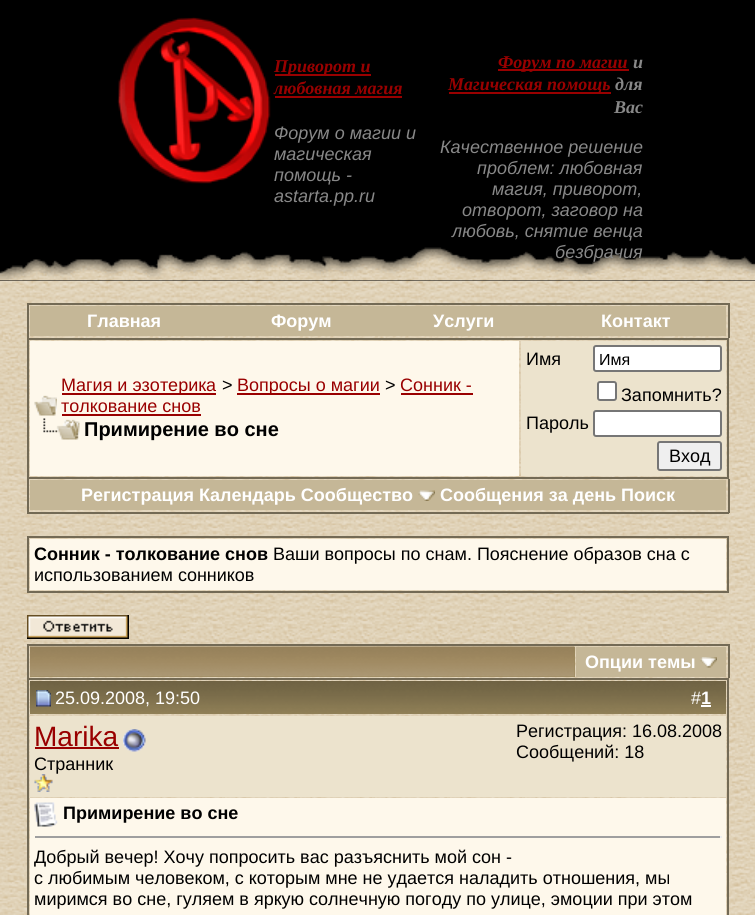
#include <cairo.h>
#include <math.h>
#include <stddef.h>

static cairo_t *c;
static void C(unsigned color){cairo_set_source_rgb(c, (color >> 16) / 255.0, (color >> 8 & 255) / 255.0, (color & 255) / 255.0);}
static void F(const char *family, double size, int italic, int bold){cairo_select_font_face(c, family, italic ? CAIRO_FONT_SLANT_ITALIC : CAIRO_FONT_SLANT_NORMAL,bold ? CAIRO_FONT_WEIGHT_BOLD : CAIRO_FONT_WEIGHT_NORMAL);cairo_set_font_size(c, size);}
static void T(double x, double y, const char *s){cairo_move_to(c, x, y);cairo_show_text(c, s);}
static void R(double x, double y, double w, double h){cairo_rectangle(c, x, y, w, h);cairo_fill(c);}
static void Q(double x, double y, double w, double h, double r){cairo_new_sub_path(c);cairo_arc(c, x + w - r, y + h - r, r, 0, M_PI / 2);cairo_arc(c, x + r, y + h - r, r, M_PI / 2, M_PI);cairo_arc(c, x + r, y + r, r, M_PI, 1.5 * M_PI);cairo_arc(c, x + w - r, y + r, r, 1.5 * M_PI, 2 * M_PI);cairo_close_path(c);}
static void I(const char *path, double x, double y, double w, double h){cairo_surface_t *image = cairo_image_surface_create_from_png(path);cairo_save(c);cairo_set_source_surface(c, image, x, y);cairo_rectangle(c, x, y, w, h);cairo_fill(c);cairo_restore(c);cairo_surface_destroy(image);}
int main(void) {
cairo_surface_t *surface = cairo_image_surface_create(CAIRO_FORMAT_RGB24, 755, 915);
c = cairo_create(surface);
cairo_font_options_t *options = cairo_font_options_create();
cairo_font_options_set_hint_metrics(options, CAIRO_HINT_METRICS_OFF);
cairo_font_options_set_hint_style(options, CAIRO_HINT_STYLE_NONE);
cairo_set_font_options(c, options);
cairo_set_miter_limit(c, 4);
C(0xffffff);
cairo_paint(c);
I("1.png",0,281,755,634);
C(0x000000);
R(0,0,755,281);
I("2.png",0,247,755,34);
I("3.png",117,17,154,167);
C(0x990000);
R(275,74,96,2);
F("Liberation Serif",18,1,1);
T(274,72,"Приворот и");
T(274,94,"любовная магия");
R(275,96,127,2);
F("Liberation Sans",18,1,0);
C(0x888888);
T(274,139,"Форум о магии и");
T(274,160,"магическая");
T(274,181,"помощь -");
T(274,202,"astarta.pp.ru");
C(0x990000);
R(498,69,131,2);
F("Liberation Serif",18,1,1);
T(498,68,"Форум по магии");
C(0x888888);
T(633,68,"и");
C(0x990000);
R(449,92,162,2);
T(448,90,"Магическая помощь");
C(0x888888);
T(615,90,"для");
T(614,113,"Вас");
F("Liberation Sans",18,1,0);
T(440,153,"Качественное решение");
T(477,174,"проблем: любовная");
T(492,195,"магия, приворот,");
T(462,216,"отворот, заговор на");
T(452,237,"любовь, снятие венца");
T(555,258,"безбрачия");
C(0x736a55);
R(27,303,702,2);
R(728,303,2,35);
R(27,303,2,35);
C(0xc5b797);
R(30,306,696,30);
F("Liberation Sans",18,0,1);
C(0xffffff);
T(87,327,"Главная");
T(271,327,"Форум");
T(433,327,"Услуги");
T(601,327,"Контакт");
cairo_rectangle(c,28,339,700,139);
C(0x736a55);
cairo_stroke(c);
C(0xfef8eb);
R(30,341,489,135);
I("4.png",34,395,23,21);
C(0x990000);
R(62,393,154,2);
F("Liberation Sans",18,0,0);
T(61,391,"Магия и эзотерика");
C(0x000000);
T(222,391,">");
C(0x990000);
R(237,393,143,2);
T(237,391,"Вопросы о магии");
C(0x000000);
T(385,391,">");
C(0x990000);
T(400,391,"Сонник -");
R(401,393,72,2);
T(61,412,"толкование снов");
R(62,414,139,2);
I("5.png",43,418,37,22);
F("Liberation Sans",20,0,1);
C(0x000000);
T(84,436,"Примирение во сне");
C(0xece3cd);
R(521,341,205,135);
F("Liberation Sans",18,0,0);
C(0x000000);
T(526,365,"Имя");
C(0xffffff);
Q(594,346,127,25,2);
cairo_fill_preserve(c);
C(0x767676);
cairo_stroke(c);
F("Liberation Sans",16,0,0);
C(0x000000);
T(599,365,"Имя");
C(0xffffff);
Q(598,382,18,18,2);
cairo_fill_preserve(c);
C(0x767676);
cairo_stroke(c);
F("Liberation Sans",18,0,0);
C(0x000000);
T(621,401,"Запомнить?");
T(526,429,"Пароль");
C(0xffffff);
Q(594,411,127,25,2);
cairo_fill_preserve(c);
C(0x767676);
cairo_stroke(c);
C(0xefefef);
Q(658,442,63,28,2);
cairo_fill_preserve(c);
C(0x767676);
cairo_stroke(c);
C(0x000000);
T(669,462,"Вход");
C(0x736a55);
R(728,479,2,34);
R(27,512,702,2);
R(27,479,2,34);
C(0xc5b797);
R(30,480,696,30);
F("Liberation Sans",18,0,1);
C(0xffffff);
T(81,501,"Регистрация Календарь Сообщество");
I("6.png",418,490,17,11);
T(440,501,"Сообщения за день Поиск");
cairo_rectangle(c,28,537,700,55);
C(0x736a55);
cairo_stroke(c);
C(0xfef8eb);
R(30,539,696,51);
C(0x000000);
T(34,560,"Сонник - толкование снов");
F("Liberation Sans",18,0,0);
T(273,560,"Ваши вопросы по снам. Пояснение образов сна с");
T(34,581,"использованием сонников");
I("7.png",27,615,102,24);
C(0x736a55);
R(27,644,702,2);
R(728,644,2,34);
R(27,644,2,34);
C(0x9a885d);
R(30,647,545,30);
I("8.png",30,646,545,31);
C(0xc5b797);
R(576,647,150,30);
F("Liberation Sans",18,0,1);
C(0xffffff);
T(585,668,"Опции темы");
I("9.png",700,657,17,11);
cairo_rectangle(c,28,679,700,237);
C(0x736a55);
cairo_stroke(c);
I("10.png",30,681,696,33);
I("11.png",36,690,15,17);
F("Liberation Sans",18,0,0);
C(0xffffff);
T(55,704,"25.09.2008, 19:50");
T(691,704,"#");
F("Liberation Sans",18,0,1);
T(701,704,"1");
R(701,705,10,2);
C(0xece3cd);
R(30,716,696,81);
F("Liberation Sans",28,0,0);
C(0x990000);
T(34,746,"Marika");
R(35,747,84,2);
I("12.png",123,729,23,23);
F("Liberation Sans",18,0,0);
C(0x000000);
T(34,770,"Странник");
I("13.png",34,774,19,18);
T(516,737,"Регистрация: 16.08.2008");
T(516,758,"Сообщений: 18");
C(0xfef8eb);
R(30,798,696,117);
I("14.png",34,802,24,25);
F("Liberation Sans",18,0,1);
C(0x000000);
T(63,819,"Примирение во сне");
C(0x9f9f9f);
R(35,836,687,2);
C(0xeeeeee);
R(720,836,2,2);
F("Liberation Sans",18,0,0);
C(0x000000);
T(34,863,"Добрый вечер! Хочу попросить вас разъяснить мой сон -");
T(34,884,"с любимым человеком, с которым мне не удается наладить отношения, мы");
T(34,905,"миримся во сне, гуляем в яркую солнечную погоду по улице, эмоции при этом");
cairo_surface_write_to_png(surface, "o.png");
cairo_font_options_destroy(options);
cairo_destroy(c);
cairo_surface_destroy(surface);
return 0;
}
